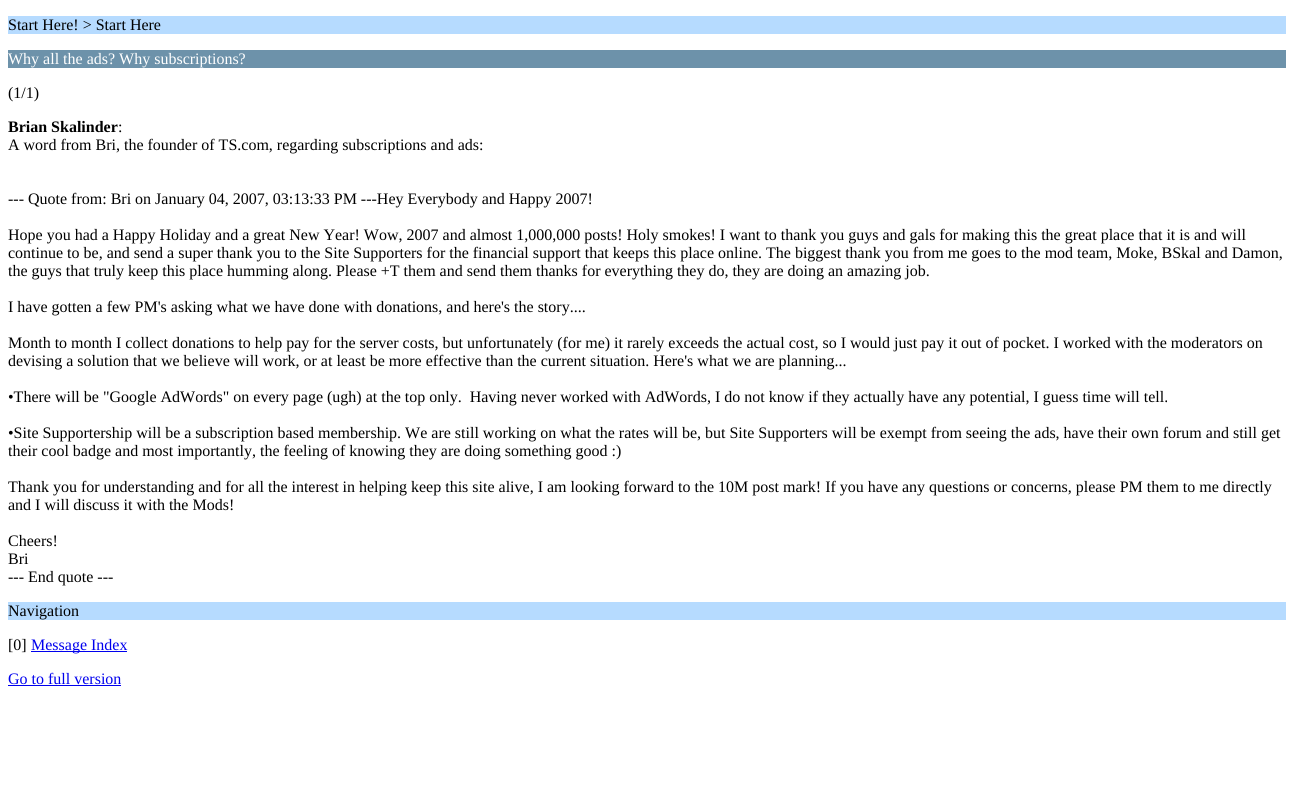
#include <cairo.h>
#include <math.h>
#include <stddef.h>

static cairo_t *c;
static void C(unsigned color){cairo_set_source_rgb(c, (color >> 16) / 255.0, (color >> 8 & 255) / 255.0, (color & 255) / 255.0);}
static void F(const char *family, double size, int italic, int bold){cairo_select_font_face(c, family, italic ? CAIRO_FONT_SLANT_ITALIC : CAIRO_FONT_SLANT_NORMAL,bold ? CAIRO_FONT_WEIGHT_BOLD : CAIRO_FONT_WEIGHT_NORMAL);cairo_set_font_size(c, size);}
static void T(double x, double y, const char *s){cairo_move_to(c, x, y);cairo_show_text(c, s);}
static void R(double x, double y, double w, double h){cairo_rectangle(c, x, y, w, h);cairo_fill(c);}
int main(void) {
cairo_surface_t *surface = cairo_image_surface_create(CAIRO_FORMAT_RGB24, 1294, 794);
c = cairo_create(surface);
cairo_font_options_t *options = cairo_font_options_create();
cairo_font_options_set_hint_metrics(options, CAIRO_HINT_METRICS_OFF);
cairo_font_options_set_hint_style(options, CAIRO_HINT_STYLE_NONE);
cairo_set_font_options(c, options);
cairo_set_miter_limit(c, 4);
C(0xffffff);
cairo_paint(c);
C(0xb6dbff);
R(8,16,1278,18);
F("Liberation Serif",16,0,0);
C(0x000000);
T(8,30,"Start Here! > Start Here");
C(0x6d92aa);
R(8,50,1278,18);
C(0xffffff);
T(8,64,"Why all the ads? Why subscriptions?");
C(0x000000);
T(8,98,"(1/1)");
F("Liberation Serif",16,0,1);
T(8,132,"Brian Skalinder");
F("Liberation Serif",16,0,0);
T(118,132,":");
T(8,150,"A word from Bri, the founder of TS.com, regarding subscriptions and ads:");
T(8,204,"--- Quote from: Bri on January 04, 2007, 03:13:33 PM ---Hey Everybody and Happy 2007!");
T(8,240,"Hope you had a Happy Holiday and a great New Year! Wow, 2007 and almost 1,000,000 posts! Holy smokes! I want to thank you guys and gals for making this the great place that it is and will");
T(8,258,"continue to be, and send a super thank you to the Site Supporters for the financial support that keeps this place online. The biggest thank you from me goes to the mod team, Moke, BSkal and Damon,");
T(8,276,"the guys that truly keep this place humming along. Please +T them and send them thanks for everything they do, they are doing an amazing job.");
T(8,312,"I have gotten a few PM's asking what we have done with donations, and here's the story....");
T(8,348,"Month to month I collect donations to help pay for the server costs, but unfortunately (for me) it rarely exceeds the actual cost, so I would just pay it out of pocket. I worked with the moderators on");
T(8,366,"devising a solution that we believe will work, or at least be more effective than the current situation. Here's what we are planning...");
T(8,402,"•There will be \"Google AdWords\" on every page (ugh) at the top only.  Having never worked with AdWords, I do not know if they actually have any potential, I guess time will tell.");
T(8,438,"•Site Supportership will be a subscription based membership. We are still working on what the rates will be, but Site Supporters will be exempt from seeing the ads, have their own forum and still get");
T(8,456,"their cool badge and most importantly, the feeling of knowing they are doing something good :)");
T(8,492,"Thank you for understanding and for all the interest in helping keep this site alive, I am looking forward to the 10M post mark! If you have any questions or concerns, please PM them to me directly");
T(8,510,"and I will discuss it with the Mods!");
T(8,546,"Cheers!");
T(8,564,"Bri");
T(8,582,"--- End quote ---");
C(0xb6dbff);
R(8,602,1278,18);
C(0x000000);
T(8,616,"Navigation");
T(8,650,"[0]");
C(0x0000ee);
R(31,651,96,1);
T(31,650,"Message Index");
T(8,684,"Go to full version");
R(8,685,113,1);
cairo_surface_write_to_png(surface, "o.png");
cairo_font_options_destroy(options);
cairo_destroy(c);
cairo_surface_destroy(surface);
return 0;
}
